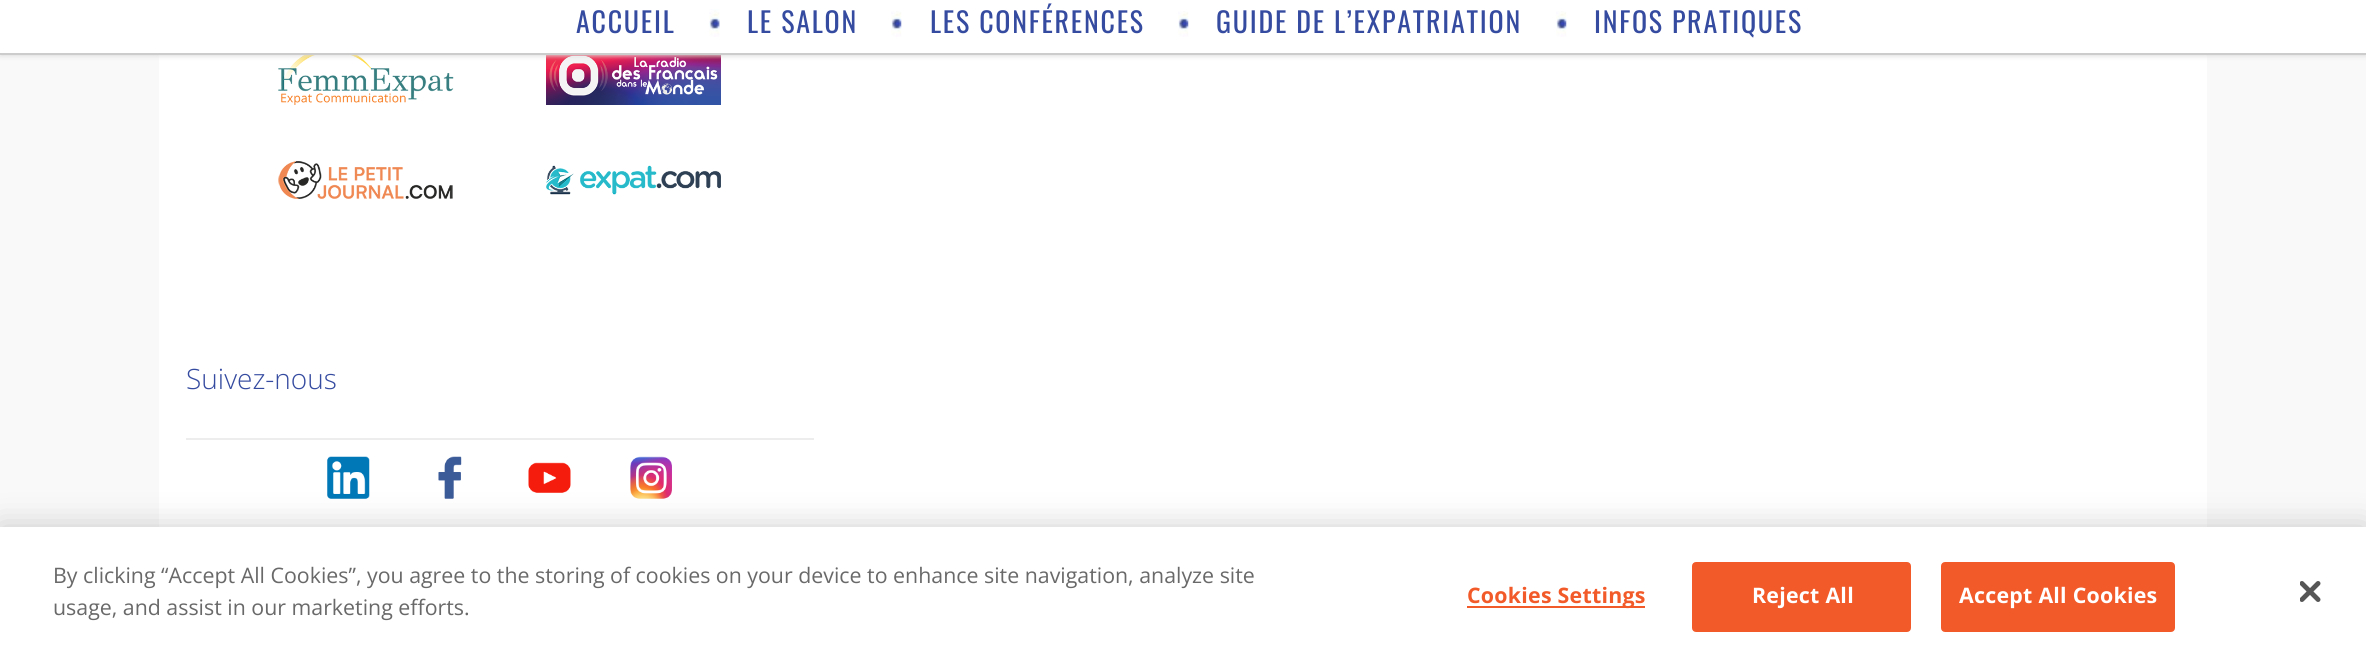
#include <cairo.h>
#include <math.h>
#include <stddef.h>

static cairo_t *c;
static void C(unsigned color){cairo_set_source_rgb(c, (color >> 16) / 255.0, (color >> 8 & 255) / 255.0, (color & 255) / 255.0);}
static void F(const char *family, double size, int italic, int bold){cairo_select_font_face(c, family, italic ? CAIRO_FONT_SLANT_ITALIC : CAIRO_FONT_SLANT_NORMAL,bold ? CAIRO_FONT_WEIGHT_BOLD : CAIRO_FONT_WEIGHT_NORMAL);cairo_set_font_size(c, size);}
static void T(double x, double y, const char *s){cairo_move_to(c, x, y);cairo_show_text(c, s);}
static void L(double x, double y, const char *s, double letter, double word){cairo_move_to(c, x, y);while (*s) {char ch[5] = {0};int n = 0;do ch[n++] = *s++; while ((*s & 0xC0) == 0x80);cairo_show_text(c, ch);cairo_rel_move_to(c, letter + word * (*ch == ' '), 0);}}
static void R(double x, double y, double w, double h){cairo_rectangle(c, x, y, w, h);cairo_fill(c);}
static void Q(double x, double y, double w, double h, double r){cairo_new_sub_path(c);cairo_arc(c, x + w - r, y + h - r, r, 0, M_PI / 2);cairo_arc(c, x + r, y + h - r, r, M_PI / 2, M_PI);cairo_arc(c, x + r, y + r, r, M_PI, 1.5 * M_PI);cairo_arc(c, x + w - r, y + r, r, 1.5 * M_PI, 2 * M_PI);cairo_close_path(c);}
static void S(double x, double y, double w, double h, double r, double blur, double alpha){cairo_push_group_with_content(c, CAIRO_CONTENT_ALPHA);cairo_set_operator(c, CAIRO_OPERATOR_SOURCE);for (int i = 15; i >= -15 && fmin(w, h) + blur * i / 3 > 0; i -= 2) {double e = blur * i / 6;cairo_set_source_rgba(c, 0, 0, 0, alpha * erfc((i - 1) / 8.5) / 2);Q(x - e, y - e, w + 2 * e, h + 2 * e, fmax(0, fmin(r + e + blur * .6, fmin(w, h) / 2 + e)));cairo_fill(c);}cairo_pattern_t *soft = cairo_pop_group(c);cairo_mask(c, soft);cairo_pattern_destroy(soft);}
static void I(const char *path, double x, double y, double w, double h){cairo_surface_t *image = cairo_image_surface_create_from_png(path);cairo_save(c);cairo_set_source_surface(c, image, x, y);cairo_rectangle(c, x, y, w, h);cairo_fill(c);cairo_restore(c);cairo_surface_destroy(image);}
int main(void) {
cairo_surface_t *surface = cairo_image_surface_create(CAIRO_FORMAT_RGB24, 2366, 660);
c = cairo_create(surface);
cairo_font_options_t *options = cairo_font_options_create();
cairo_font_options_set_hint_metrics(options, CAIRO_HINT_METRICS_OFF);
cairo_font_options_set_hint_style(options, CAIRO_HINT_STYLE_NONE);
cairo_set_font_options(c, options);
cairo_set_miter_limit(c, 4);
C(0xf9f9f9);
cairo_paint(c);
C(0xffffff);
R(159,55,2048,472);
I("3.png",278,55,176,50);
I("4.png",546,55,175,50);
C(0xdddddd);
S(0,2,2366,54,0,2.5,1);
C(0xffffff);
R(0,0,2366,53);
C(0xcccccc);
R(0,53,2366,2);
F("Oswald",28,0,0);
C(0x354ba0);
L(576,33,"ACCUEIL",1.75,0);
I("1.png",709,9,11,28);
L(747,33,"LE SALON",1.75,0);
I("2.png",891,11,11,26);
L(930,33,"LES CONFÉRENCES",1.75,0);
I("2.png",1178,11,11,26);
L(1216,33,"GUIDE DE L’EXPATRIATION",1.75,0);
I("2.png",1556,11,11,26);
L(1594,33,"INFOS PRATIQUES",1.75,0);
I("5.png",278,161,175,38);
I("6.png",546,165,175,30);
C(0xededed);
R(186,438,628,2);
F("Open Sans Light",28,0,0);
C(0x354ba0);
T(186,389,"Suivez-nous");
I("7.png",327,456,43,43);
I("8.png",438,456,24,43);
I("9.png",528,462,43,31);
I("10.png",630,456,42,43);
C(0x000000);
S(0,527,2366,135,0,16,.2);
C(0xffffff);
R(0,527,2366,133);
F("Open Sans",21.35,0,0);
C(0x696969);
T(53,583,"By clicking “Accept All Cookies”, you agree to the storing of cookies on your device to enhance site navigation, analyze site");
T(53,615,"usage, and assist in our marketing efforts.");
C(0xf25a29);
R(1467,606,178,2);
F("Open Sans",21.35,0,1);
L(1467,603,"Cookies Settings",.25,0);
Q(1693,563,217,68,3);
cairo_fill_preserve(c);
cairo_stroke(c);
C(0xffffff);
L(1752,603,"Reject All",.25,0);
C(0xf25a29);
Q(1942,563,232,68,3);
cairo_fill_preserve(c);
cairo_stroke(c);
C(0xffffff);
L(1959,603,"Accept All Cookies",.25,0);
I("11.png",2300,581,21,21);
cairo_surface_write_to_png(surface, "o.png");
cairo_font_options_destroy(options);
cairo_destroy(c);
cairo_surface_destroy(surface);
return 0;
}
